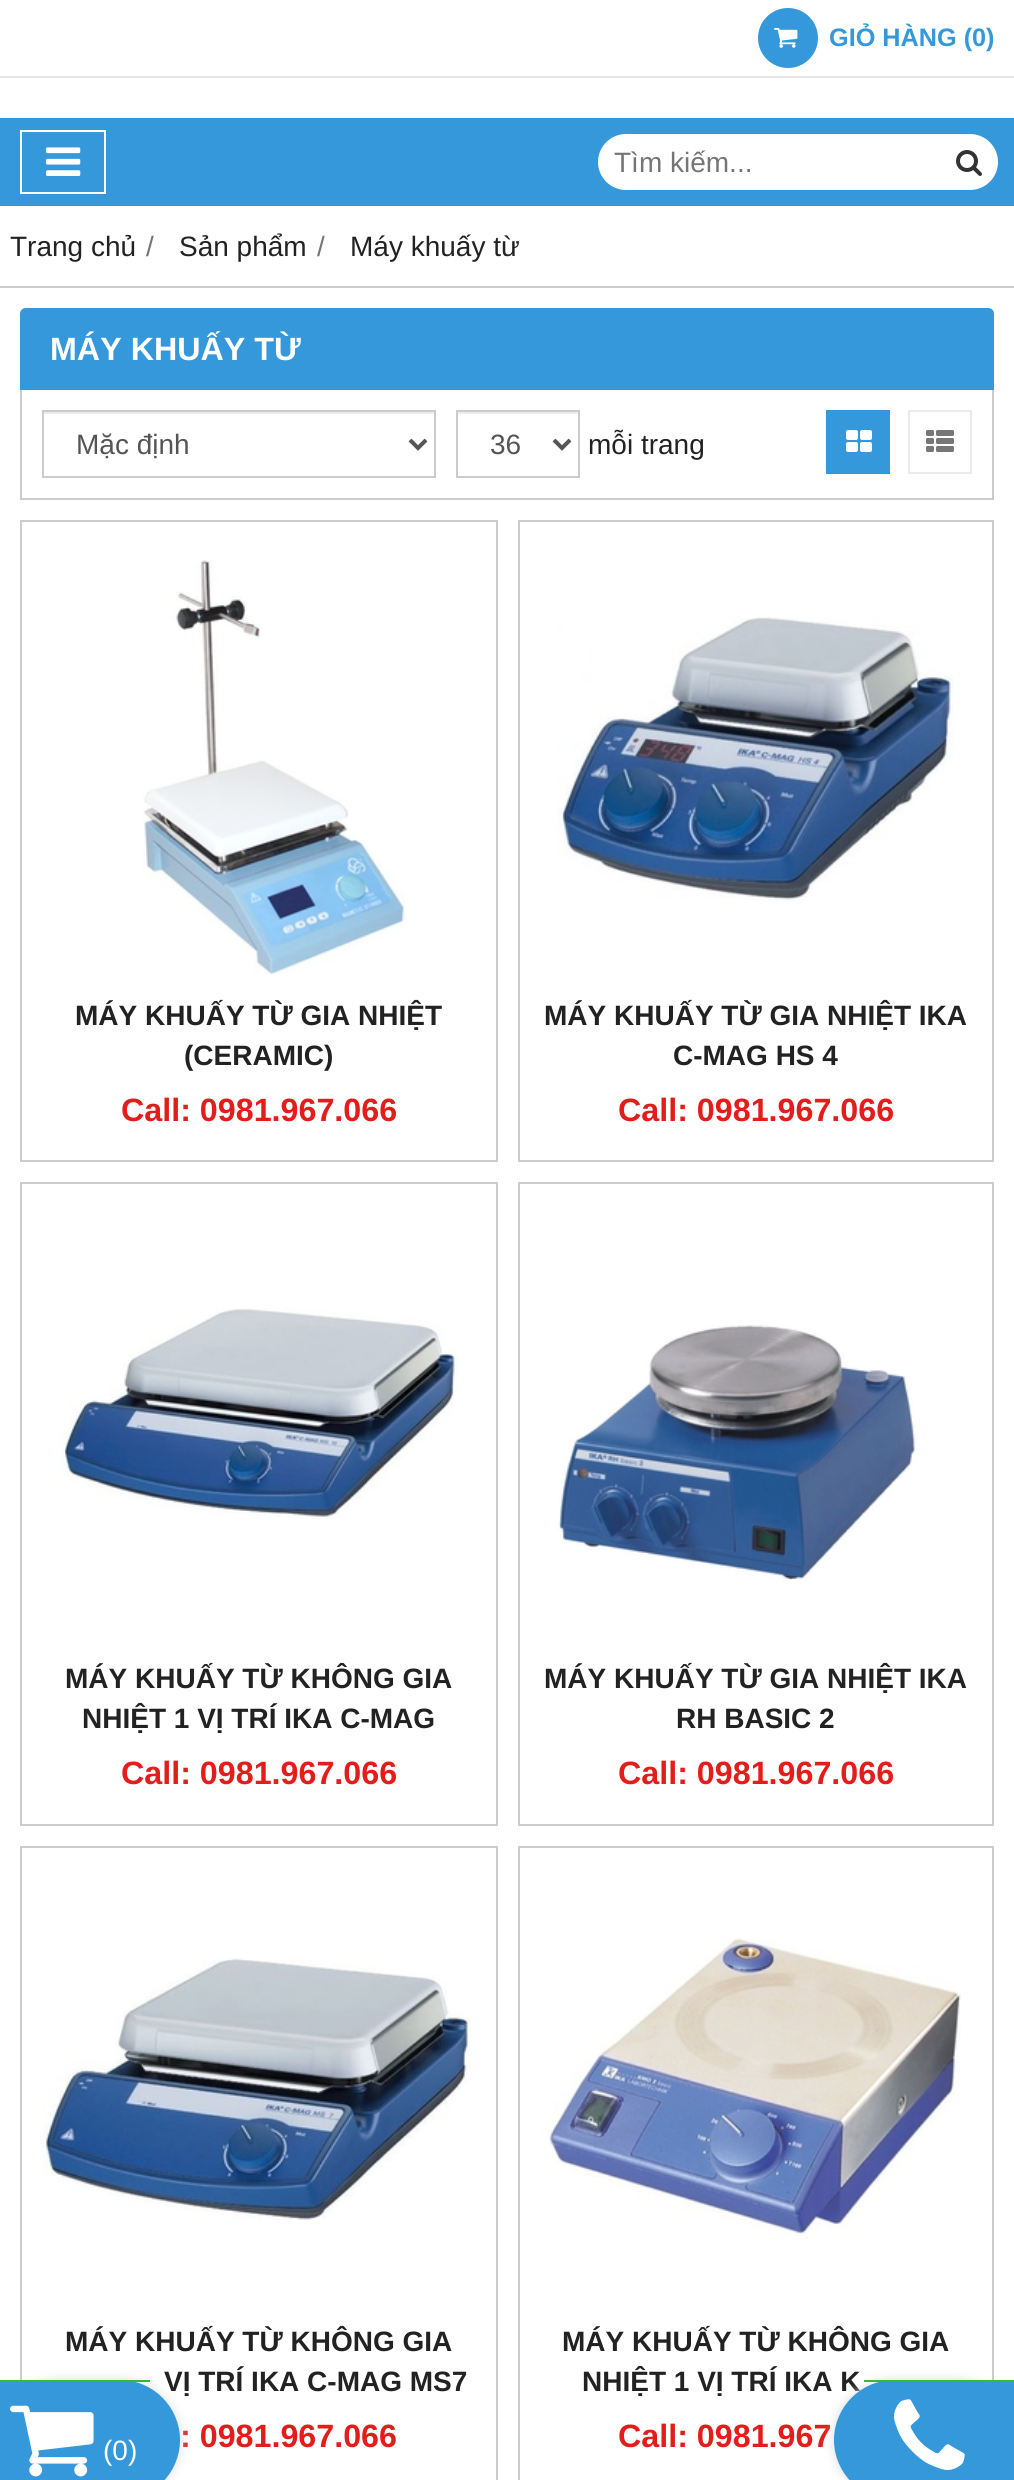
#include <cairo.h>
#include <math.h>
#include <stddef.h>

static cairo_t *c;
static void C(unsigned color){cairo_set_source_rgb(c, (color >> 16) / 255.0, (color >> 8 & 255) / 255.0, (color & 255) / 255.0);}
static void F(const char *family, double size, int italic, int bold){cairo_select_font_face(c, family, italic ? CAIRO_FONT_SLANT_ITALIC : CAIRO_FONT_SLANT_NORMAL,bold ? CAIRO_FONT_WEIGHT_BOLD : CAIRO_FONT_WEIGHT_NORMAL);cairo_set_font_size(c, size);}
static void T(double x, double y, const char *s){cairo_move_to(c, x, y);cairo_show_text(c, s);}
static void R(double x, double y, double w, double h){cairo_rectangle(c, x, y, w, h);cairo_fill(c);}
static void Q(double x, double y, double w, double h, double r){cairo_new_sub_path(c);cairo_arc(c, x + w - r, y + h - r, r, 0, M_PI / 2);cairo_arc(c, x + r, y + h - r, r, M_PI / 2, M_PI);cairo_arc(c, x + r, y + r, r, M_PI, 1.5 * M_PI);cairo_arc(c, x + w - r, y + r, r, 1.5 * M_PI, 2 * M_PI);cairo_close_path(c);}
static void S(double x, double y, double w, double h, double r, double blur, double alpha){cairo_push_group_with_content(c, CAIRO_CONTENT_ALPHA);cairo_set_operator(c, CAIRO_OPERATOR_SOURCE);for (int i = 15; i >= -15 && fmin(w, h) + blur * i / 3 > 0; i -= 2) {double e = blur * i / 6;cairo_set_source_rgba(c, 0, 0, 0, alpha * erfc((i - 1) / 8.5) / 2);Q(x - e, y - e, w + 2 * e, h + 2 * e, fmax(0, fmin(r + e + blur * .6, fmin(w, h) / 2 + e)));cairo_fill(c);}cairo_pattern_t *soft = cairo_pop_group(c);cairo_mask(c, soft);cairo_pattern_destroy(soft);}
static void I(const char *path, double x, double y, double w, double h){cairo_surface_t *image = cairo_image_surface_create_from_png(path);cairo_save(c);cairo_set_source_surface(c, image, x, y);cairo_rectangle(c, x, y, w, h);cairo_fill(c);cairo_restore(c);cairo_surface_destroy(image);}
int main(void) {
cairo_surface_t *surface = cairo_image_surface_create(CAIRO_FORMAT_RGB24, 1014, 2480);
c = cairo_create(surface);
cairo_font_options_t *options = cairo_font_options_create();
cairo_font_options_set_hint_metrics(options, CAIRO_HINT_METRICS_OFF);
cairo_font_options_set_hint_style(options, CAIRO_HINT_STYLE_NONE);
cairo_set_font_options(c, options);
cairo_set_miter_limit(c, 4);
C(0xffffff);
cairo_paint(c);
C(0xe5e5e5);
R(0,76,1014,2);
C(0x3498db);
cairo_arc(c,788,38,30,0,2 * M_PI);
cairo_fill(c);
I("1.png",774,28,24,20);
F("Liberation Sans",25.25,0,1);
T(829,46,"GIỎ HÀNG (0)");
R(0,118,1014,88);
cairo_rectangle(c,21,131,84,62);
C(0xffffff);
cairo_stroke(c);
I("2.png",46,147,35,29);
Q(598,134,400,56,28);
cairo_fill(c);
F("Liberation Sans",28,0,0);
C(0x757575);
T(614,172,"Tìm kiếm...");
I("3.png",956,150,26,26);
C(0xcccccc);
R(0,286,1014,2);
C(0x222222);
T(10,256,"Trang chủ");
C(0x757575);
T(146,256,"/");
C(0x222222);
T(179,256,"Sản phẩm");
C(0x757575);
T(317,256,"/");
C(0x222222);
T(350,256,"Máy khuấy từ");
C(0x3498db);
cairo_new_path(c);
cairo_move_to(c,26,308);
cairo_line_to(c,988,308);
cairo_curve_to(c,991.5,308,994,310.5,994,314);
cairo_line_to(c,994,390);
cairo_line_to(c,20,390);
cairo_line_to(c,20,314);
cairo_curve_to(c,20,310.5,22.5,308,26,308);
cairo_close_path(c);
cairo_fill(c);
F("Liberation Sans",32.25,0,1);
C(0xffffff);
T(50,360,"MÁY KHUẤY TỪ");
C(0xcccccc);
R(992,390,2,110);
R(20,498,974,2);
R(20,390,2,110);
C(0xececec);
R(44,412,390,2);
cairo_rectangle(c,43,411,392,66);
C(0xcccccc);
cairo_stroke(c);
cairo_new_path(c);
cairo_move_to(c,410,440);
cairo_line_to(c,418,448);
cairo_line_to(c,426,440);
C(0x555555);
cairo_set_line_width(c,4);
cairo_stroke(c);
F("Liberation Sans",28,0,0);
T(76,454,"Mặc định");
C(0xececec);
R(458,412,120,2);
cairo_rectangle(c,457,411,122,66);
C(0xcccccc);
cairo_set_line_width(c,2);
cairo_stroke(c);
cairo_new_path(c);
cairo_move_to(c,554,440);
cairo_line_to(c,562,448);
cairo_line_to(c,570,440);
C(0x555555);
cairo_set_line_width(c,4);
cairo_stroke(c);
T(490,454,"36");
C(0x222222);
T(588,454,"mỗi trang");
C(0x3498db);
R(826,410,64,64);
I("4.png",846,430,26,22);
cairo_rectangle(c,909,411,62,62);
C(0xebebeb);
cairo_set_line_width(c,2);
cairo_stroke(c);
I("5.png",926,430,28,22);
cairo_rectangle(c,21,521,476,640);
C(0xcccccc);
cairo_stroke(c);
I("6.png",143,560,262,414);
F("Liberation Sans",28,0,1);
C(0x222222);
T(75,1025,"MÁY KHUẤY TỪ GIA NHIỆT");
T(184,1065,"(CERAMIC)");
F("Liberation Sans",32.25,0,1);
C(0xe31d1a);
T(121,1121,"Call: 0981.967.066");
cairo_rectangle(c,519,521,474,640);
C(0xcccccc);
cairo_stroke(c);
I("7.png",557,617,397,285);
F("Liberation Sans",28,0,1);
C(0x222222);
T(544,1025,"MÁY KHUẤY TỪ GIA NHIỆT IKA");
T(673,1065,"C-MAG HS 4");
F("Liberation Sans",32.25,0,1);
C(0xe31d1a);
T(618,1121,"Call: 0981.967.066");
cairo_rectangle(c,21,1183,476,642);
C(0xcccccc);
cairo_stroke(c);
I("8.png",59,1308,400,211);
F("Liberation Sans",28,0,1);
C(0x222222);
T(65,1688,"MÁY KHUẤY TỪ KHÔNG GIA");
T(82,1728,"NHIỆT 1 VỊ TRÍ IKA C-MAG");
F("Liberation Sans",32.25,0,1);
C(0xe31d1a);
T(121,1784,"Call: 0981.967.066");
cairo_rectangle(c,519,1183,474,642);
C(0xcccccc);
cairo_stroke(c);
I("9.png",558,1325,359,256);
F("Liberation Sans",28,0,1);
C(0x222222);
T(544,1688,"MÁY KHUẤY TỪ GIA NHIỆT IKA");
T(676,1728,"RH BASIC 2");
F("Liberation Sans",32.25,0,1);
C(0xe31d1a);
T(618,1784,"Call: 0981.967.066");
cairo_rectangle(c,21,1847,476,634);
C(0xcccccc);
cairo_stroke(c);
I("10.png",43,1958,433,262);
F("Liberation Sans",28,0,1);
C(0x222222);
T(65,2351,"MÁY KHUẤY TỪ KHÔNG GIA");
T(164,2391,"VỊ TRÍ IKA C-MAG MS7");
F("Liberation Sans",32.25,0,1);
C(0xe31d1a);
T(180,2447,": 0981.967.066");
cairo_rectangle(c,519,1847,474,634);
C(0xcccccc);
cairo_stroke(c);
I("11.png",542,1938,419,301);
F("Liberation Sans",28,0,1);
C(0x222222);
T(562,2351,"MÁY KHUẤY TỪ KHÔNG GIA");
T(582,2391,"NHIỆT 1 VỊ TRÍ IKA K");
F("Liberation Sans",32.25,0,1);
C(0xe31d1a);
T(618,2447,"Call: 0981.967");
C(0xdddddd);
S(0,2380,180,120,60,5,1);
C(0x3498db);
cairo_new_path(c);
cairo_move_to(c,0,2380);
cairo_line_to(c,120,2380);
cairo_curve_to(c,153,2380,180,2407,180,2440);
cairo_curve_to(c,180,2473,153,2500,120,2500);
cairo_line_to(c,0,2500);
cairo_close_path(c);
cairo_fill(c);
C(0x33bb33);
R(0,2380,150,2);
I("12.png",10,2405,84,72);
F("Liberation Sans",28,0,0);
C(0xffffff);
T(103,2460,"(0)");
C(0xdddddd);
S(834,2380,180,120,60,5,1);
C(0x3498db);
cairo_new_path(c);
cairo_move_to(c,894,2380);
cairo_line_to(c,1014,2380);
cairo_line_to(c,1014,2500);
cairo_line_to(c,894,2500);
cairo_curve_to(c,861,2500,834,2473,834,2440);
cairo_curve_to(c,834,2407,861,2380,894,2380);
cairo_close_path(c);
cairo_fill(c);
C(0x33bb33);
R(864,2380,150,2);
I("13.png",894,2399,71,71);
cairo_surface_write_to_png(surface, "o.png");
cairo_font_options_destroy(options);
cairo_destroy(c);
cairo_surface_destroy(surface);
return 0;
}
